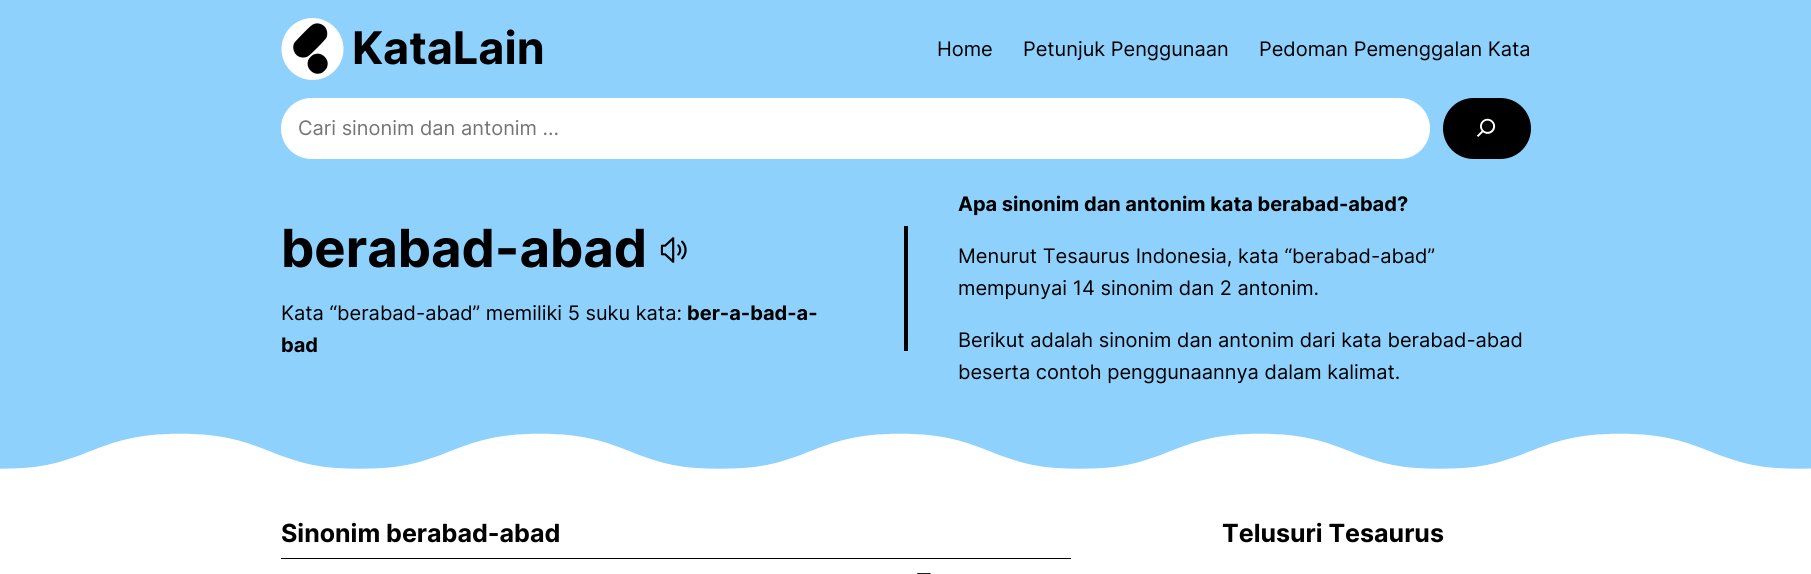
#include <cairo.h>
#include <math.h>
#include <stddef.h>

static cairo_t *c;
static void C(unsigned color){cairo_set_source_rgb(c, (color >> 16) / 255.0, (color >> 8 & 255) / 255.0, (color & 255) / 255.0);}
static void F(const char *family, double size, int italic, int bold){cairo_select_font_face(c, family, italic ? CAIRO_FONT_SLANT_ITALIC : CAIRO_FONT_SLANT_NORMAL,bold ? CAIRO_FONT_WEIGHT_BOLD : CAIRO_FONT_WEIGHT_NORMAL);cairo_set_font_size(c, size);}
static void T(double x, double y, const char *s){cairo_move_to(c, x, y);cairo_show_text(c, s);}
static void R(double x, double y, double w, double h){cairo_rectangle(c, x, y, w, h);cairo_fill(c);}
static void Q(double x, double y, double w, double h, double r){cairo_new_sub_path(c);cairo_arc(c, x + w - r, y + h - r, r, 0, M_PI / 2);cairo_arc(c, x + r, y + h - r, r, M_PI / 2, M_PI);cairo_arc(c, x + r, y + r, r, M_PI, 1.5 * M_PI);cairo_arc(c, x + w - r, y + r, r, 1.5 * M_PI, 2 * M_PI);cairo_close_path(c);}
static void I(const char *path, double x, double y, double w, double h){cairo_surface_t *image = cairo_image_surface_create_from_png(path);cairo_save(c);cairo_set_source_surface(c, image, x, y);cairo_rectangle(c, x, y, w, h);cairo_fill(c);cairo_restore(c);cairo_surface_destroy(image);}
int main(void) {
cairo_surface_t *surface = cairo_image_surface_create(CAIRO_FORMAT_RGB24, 1811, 574);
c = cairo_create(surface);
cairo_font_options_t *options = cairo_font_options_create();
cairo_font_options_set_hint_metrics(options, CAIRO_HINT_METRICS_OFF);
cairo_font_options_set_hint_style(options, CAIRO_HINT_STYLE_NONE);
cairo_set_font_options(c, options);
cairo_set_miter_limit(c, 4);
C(0xffffff);
cairo_paint(c);
C(0x8ed1fc);
R(0,0,1811,389);
I("1.png",281,18,63,62);
F("Inter",45,0,1);
C(0x000000);
T(352,64,"KataLain");
F("Inter",20,0,0);
T(937,56,"Home");
T(1023,56,"Petunjuk Penggunaan");
T(1259,56,"Pedoman Pemenggalan Kata");
C(0xffffff);
Q(281.5,98.5,1148,60,30);
cairo_fill_preserve(c);
cairo_set_line_width(c,1);
cairo_stroke(c);
C(0x757575);
T(298,135,"Cari sinonim dan antonim ...");
C(0x000000);
Q(1443,98,88,61,30.5);
cairo_fill(c);
I("2.png",1477,118,19,19);
F("Inter",52.5,0,1);
T(281,267,"berabad-abad");
I("3.png",660,237,27,26);
F("Inter",20,0,0);
T(281,320,"Kata “berabad-abad” memiliki 5 suku kata:");
F("Inter",20,0,1);
T(687,320,"ber-a-bad-a-");
T(281,352,"bad");
R(904,226,4,125);
T(958,211,"Apa sinonim dan antonim kata berabad-abad?");
F("Inter",20,0,0);
T(958,263,"Menurut Tesaurus Indonesia, kata “berabad-abad”");
T(958,295,"mempunyai 14 sinonim dan 2 antonim.");
T(958,347,"Berikut adalah sinonim dan antonim dari kata berabad-abad");
T(958,379,"beserta contoh penggunaannya dalam kalimat.");
I("4.png",0,389,1811,80);
R(281,558,790,1);
F("Inter",25,0,1);
T(281,542,"Sinonim berabad-abad");
I("5.png",917,573,14,1);
T(1222,542,"Telusuri Tesaurus");
cairo_surface_write_to_png(surface, "o.png");
cairo_font_options_destroy(options);
cairo_destroy(c);
cairo_surface_destroy(surface);
return 0;
}
